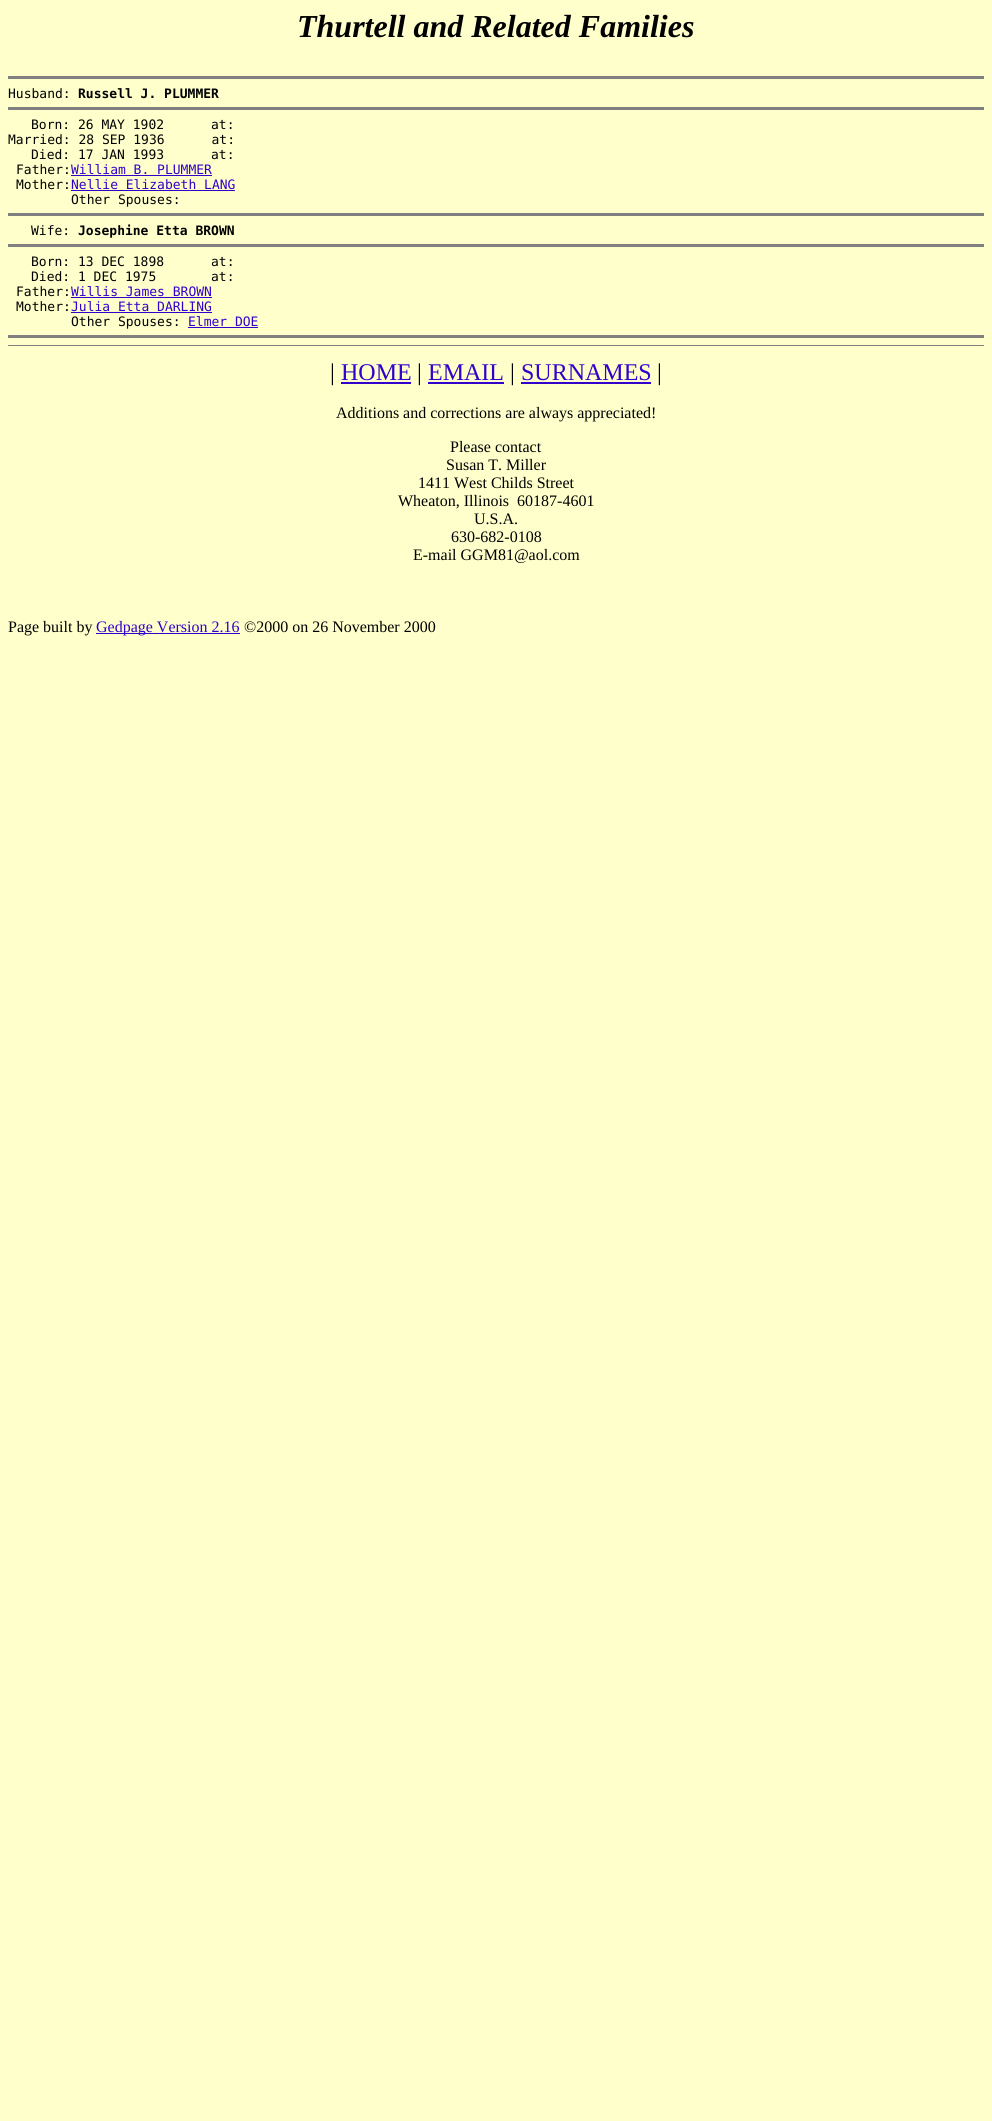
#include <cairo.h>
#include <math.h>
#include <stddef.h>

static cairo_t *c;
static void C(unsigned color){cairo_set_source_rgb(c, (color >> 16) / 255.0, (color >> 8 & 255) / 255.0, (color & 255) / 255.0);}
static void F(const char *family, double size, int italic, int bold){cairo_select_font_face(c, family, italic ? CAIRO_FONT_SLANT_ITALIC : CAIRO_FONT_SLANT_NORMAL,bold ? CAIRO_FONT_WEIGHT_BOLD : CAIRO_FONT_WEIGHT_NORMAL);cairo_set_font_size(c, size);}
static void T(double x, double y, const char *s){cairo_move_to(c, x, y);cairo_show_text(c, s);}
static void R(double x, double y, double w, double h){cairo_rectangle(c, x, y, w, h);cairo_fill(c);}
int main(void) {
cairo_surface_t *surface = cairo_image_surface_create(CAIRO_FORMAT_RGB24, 992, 2121);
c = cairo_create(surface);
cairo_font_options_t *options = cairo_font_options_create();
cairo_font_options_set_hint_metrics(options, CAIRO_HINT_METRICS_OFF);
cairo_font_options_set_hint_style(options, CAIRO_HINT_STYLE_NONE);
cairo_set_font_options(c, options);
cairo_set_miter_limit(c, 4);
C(0xffffcc);
cairo_paint(c);
F("Liberation Serif",32,1,1);
C(0x000000);
T(297,37,"Thurtell and Related Families");
C(0x808080);
R(8,76,976,3);
F("DejaVu Sans Mono",13,0,0);
C(0x000000);
T(8,98,"Husband:");
F("DejaVu Sans Mono",13,0,1);
T(78,98,"Russell J. PLUMMER");
C(0x808080);
R(8,107,976,3);
F("DejaVu Sans Mono",13,0,0);
C(0x000000);
T(31,129,"Born: 26 MAY 1902      at:");
T(8,144,"Married: 28 SEP 1936      at:");
T(31,159,"Died: 17 JAN 1993      at:");
T(16,174,"Father:");
C(0x3300cc);
T(71,174,"William B. PLUMMER");
R(71,175,141,1);
C(0x000000);
T(16,189,"Mother:");
C(0x3300cc);
T(71,189,"Nellie Elizabeth LANG");
R(71,190,164,1);
C(0x000000);
T(71,204,"Other Spouses:");
C(0x808080);
R(8,213,976,3);
C(0x000000);
T(31,235,"Wife:");
F("DejaVu Sans Mono",13,0,1);
T(78,235,"Josephine Etta BROWN");
C(0x808080);
R(8,244,976,3);
F("DejaVu Sans Mono",13,0,0);
C(0x000000);
T(31,266,"Born: 13 DEC 1898      at:");
T(31,281,"Died: 1 DEC 1975       at:");
T(16,296,"Father:");
C(0x3300cc);
T(71,296,"Willis James BROWN");
R(71,297,141,1);
C(0x000000);
T(16,311,"Mother:");
C(0x3300cc);
T(71,311,"Julia Etta DARLING");
R(71,312,141,1);
C(0x000000);
T(71,326,"Other Spouses:");
C(0x3300cc);
T(188,326,"Elmer DOE");
R(188,327,70,1);
C(0x808080);
R(8,335,976,3);
R(8,345,976,1);
F("Liberation Serif",24,0,0);
C(0x000000);
T(330,380,"|");
C(0x3300cc);
T(341,380,"HOME");
R(341,382,70,2);
C(0x000000);
T(417,380,"|");
C(0x3300cc);
T(428,380,"EMAIL");
R(428,382,76,2);
C(0x000000);
T(510,380,"|");
C(0x3300cc);
T(521,380,"SURNAMES");
R(521,382,130,2);
C(0x000000);
T(657,380,"|");
F("Liberation Serif",16,0,0);
T(336,418,"Additions and corrections are always appreciated!");
T(450,452,"Please contact");
T(446,470,"Susan T. Miller");
T(418,488,"1411 West Childs Street");
T(398,506,"Wheaton, Illinois  60187-4601");
T(474,524,"U.S.A.");
T(451,542,"630-682-0108");
T(413,560,"E-mail GGM81@aol.com");
T(8,632,"Page built by");
C(0x3300cc);
R(96,633,144,1);
T(96,632,"Gedpage Version 2.16");
C(0x000000);
T(244,632,"©2000 on 26 November 2000");
cairo_surface_write_to_png(surface, "o.png");
cairo_font_options_destroy(options);
cairo_destroy(c);
cairo_surface_destroy(surface);
return 0;
}
